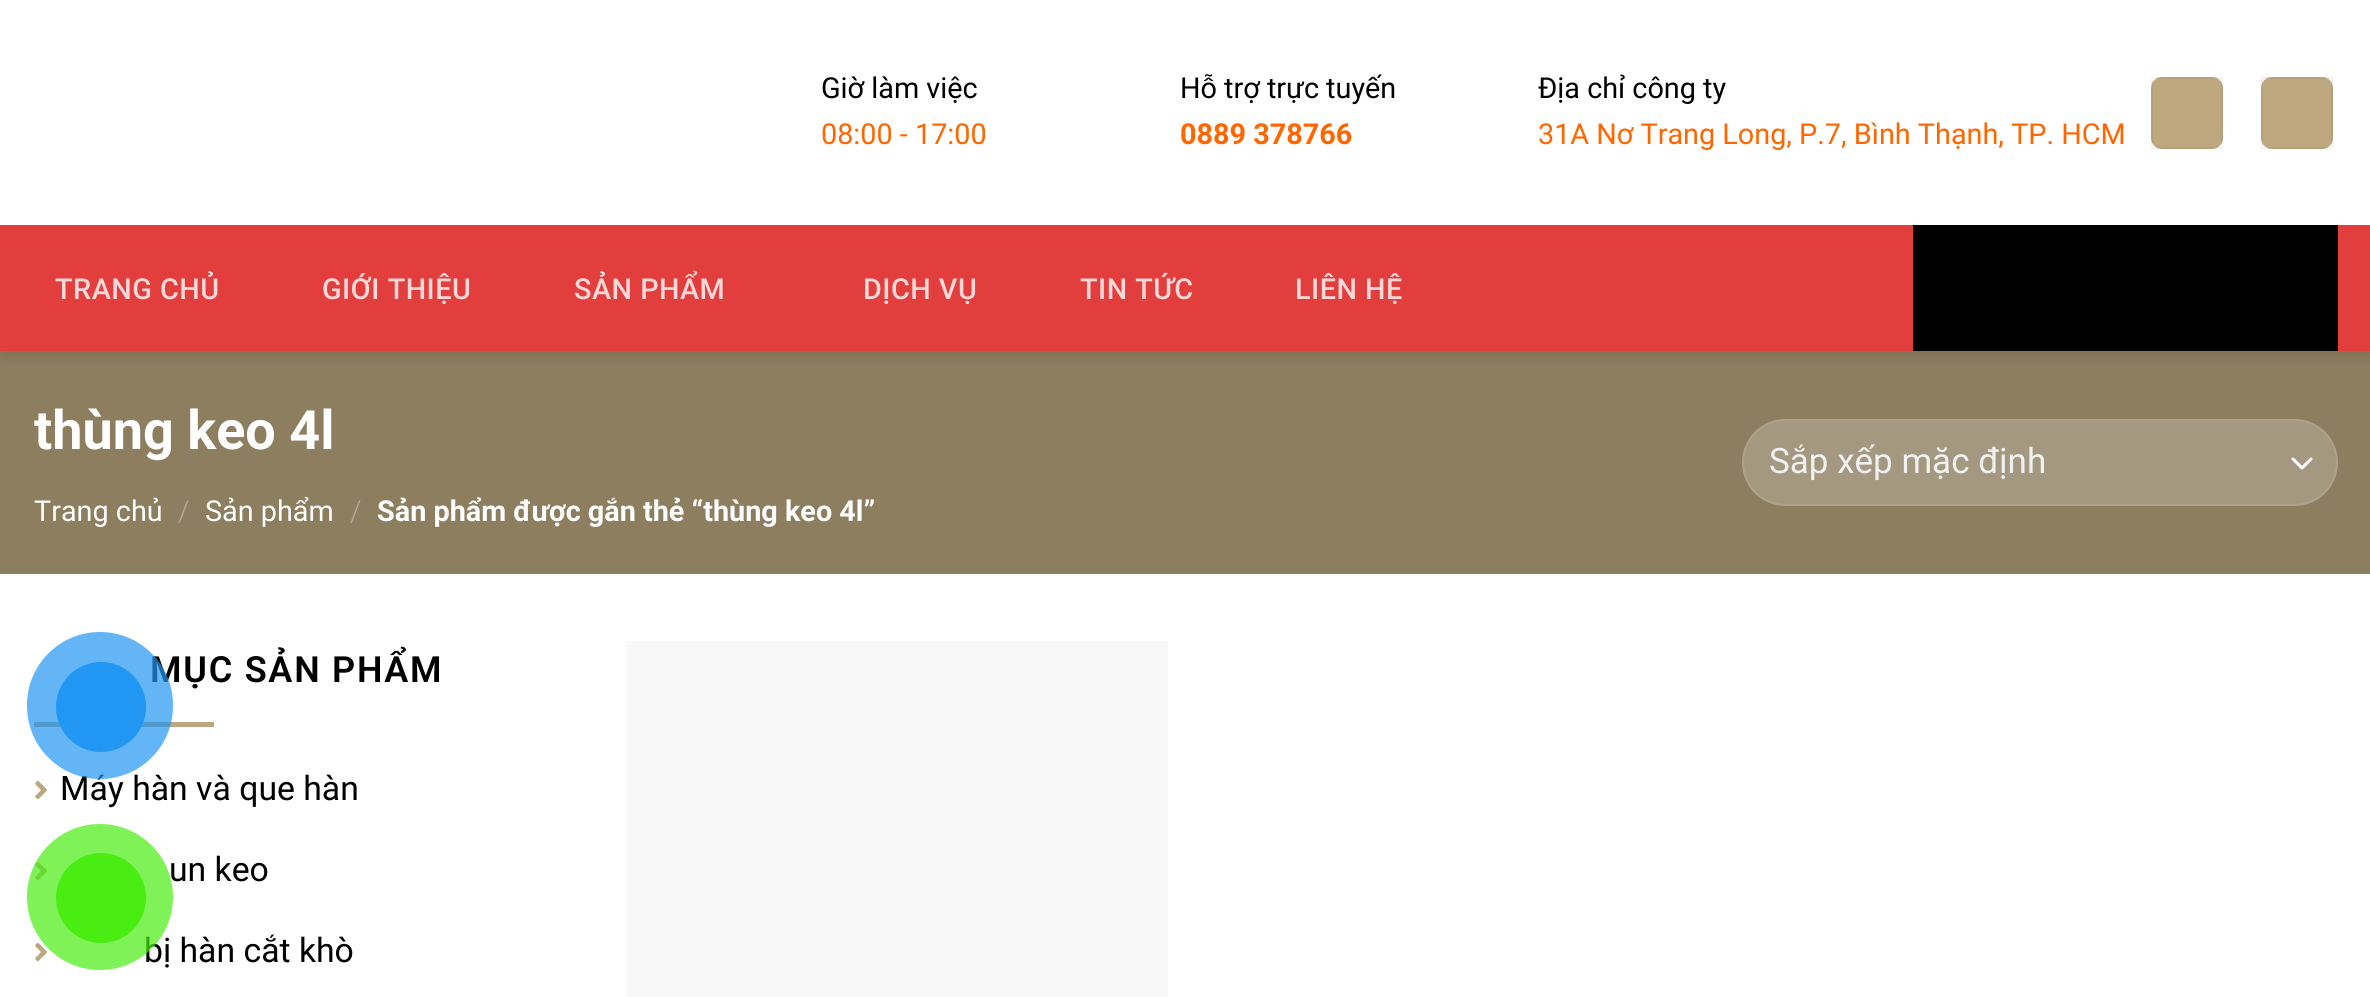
#include <cairo.h>
#include <math.h>
#include <stddef.h>

static cairo_t *c;
static void C(unsigned color){cairo_set_source_rgb(c, (color >> 16) / 255.0, (color >> 8 & 255) / 255.0, (color & 255) / 255.0);}
static void F(const char *family, double size, int italic, int bold){cairo_select_font_face(c, family, italic ? CAIRO_FONT_SLANT_ITALIC : CAIRO_FONT_SLANT_NORMAL,bold ? CAIRO_FONT_WEIGHT_BOLD : CAIRO_FONT_WEIGHT_NORMAL);cairo_set_font_size(c, size);}
static void T(double x, double y, const char *s){cairo_move_to(c, x, y);cairo_show_text(c, s);}
static void L(double x, double y, const char *s, double letter, double word){cairo_move_to(c, x, y);while (*s) {char ch[5] = {0};int n = 0;do ch[n++] = *s++; while ((*s & 0xC0) == 0x80);cairo_show_text(c, ch);cairo_rel_move_to(c, letter + word * (*ch == ' '), 0);}}
static void R(double x, double y, double w, double h){cairo_rectangle(c, x, y, w, h);cairo_fill(c);}
static void Q(double x, double y, double w, double h, double r){cairo_new_sub_path(c);cairo_arc(c, x + w - r, y + h - r, r, 0, M_PI / 2);cairo_arc(c, x + r, y + h - r, r, M_PI / 2, M_PI);cairo_arc(c, x + r, y + r, r, M_PI, 1.5 * M_PI);cairo_arc(c, x + w - r, y + r, r, 1.5 * M_PI, 2 * M_PI);cairo_close_path(c);}
static void S(double x, double y, double w, double h, double r, double blur, double alpha){cairo_push_group_with_content(c, CAIRO_CONTENT_ALPHA);cairo_set_operator(c, CAIRO_OPERATOR_SOURCE);for (int i = 15; i >= -15 && fmin(w, h) + blur * i / 3 > 0; i -= 2) {double e = blur * i / 6;cairo_set_source_rgba(c, 0, 0, 0, alpha * erfc((i - 1) / 8.5) / 2);Q(x - e, y - e, w + 2 * e, h + 2 * e, fmax(0, fmin(r + e + blur * .6, fmin(w, h) / 2 + e)));cairo_fill(c);}cairo_pattern_t *soft = cairo_pop_group(c);cairo_mask(c, soft);cairo_pattern_destroy(soft);}
static void I(const char *path, double x, double y, double w, double h){cairo_surface_t *image = cairo_image_surface_create_from_png(path);cairo_save(c);cairo_set_source_surface(c, image, x, y);cairo_rectangle(c, x, y, w, h);cairo_fill(c);cairo_restore(c);cairo_surface_destroy(image);}
int main(void) {
cairo_surface_t *surface = cairo_image_surface_create(CAIRO_FORMAT_RGB24, 2370, 997);
c = cairo_create(surface);
cairo_font_options_t *options = cairo_font_options_create();
cairo_font_options_set_hint_metrics(options, CAIRO_HINT_METRICS_OFF);
cairo_font_options_set_hint_style(options, CAIRO_HINT_STYLE_NONE);
cairo_set_font_options(c, options);
cairo_set_miter_limit(c, 4);
C(0xffffff);
cairo_paint(c);
C(0x8e7e60);
R(0,351,2370,223);
cairo_save(c);
cairo_rectangle(c,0,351,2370,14);
cairo_clip(c);
C(0x000000);
S(2,2,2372,351,0,11,.15);
cairo_restore(c);
F("Roboto",28.8,0,0);
C(0x000000);
T(821,98,"Giờ làm việc");
C(0xff6600);
T(821,144,"08:00 - 17:00");
C(0x000000);
T(1180,98,"Hỗ trợ trực tuyến");
F("Roboto",28.8,0,1);
C(0xff6600);
T(1180,144,"0889 378766");
F("Roboto",28.8,0,0);
C(0x000000);
T(1538,98,"Địa chỉ công ty");
C(0xff6600);
T(1538,144,"31A Nơ Trang Long, P.7, Bình Thạnh, TP. HCM");
C(0xbda87f);
Q(2151,77,72,72,11);
cairo_fill(c);
cairo_rectangle(c,2152,78,70,70);
cairo_set_source_rgba(c,0,0,0,0.05);
cairo_stroke(c);
C(0xbda87f);
Q(2261,77,72,72,11);
cairo_fill(c);
cairo_rectangle(c,2262,78,70,70);
cairo_set_source_rgba(c,0,0,0,0.05);
cairo_stroke(c);
C(0xe23e3e);
R(0,225,2370,126);
F("Roboto Medium",28.8,0,0);
C(0xf9d8d8);
L(55,299,"TRANG CHỦ",.5,0);
L(322,299,"GIỚI THIỆU",.5,0);
L(574,299,"SẢN PHẨM",.5,0);
L(863,299,"DỊCH VỤ",.5,0);
L(1080,299,"TIN TỨC",.5,0);
L(1295,299,"LIÊN HỆ",.5,0);
C(0x000000);
R(1913,225,425,126);
F("Roboto",54,0,1);
C(0xffffff);
T(34,449,"thùng keo 4l");
F("Roboto",28.8,0,0);
T(34,521,"Trang chủ");
F("Roboto Light",28.8,0,0);
C(0xb6ab98);
T(178,521,"/");
F("Roboto",28.8,0,0);
C(0xffffff);
T(205,521,"Sản phẩm");
F("Roboto Light",28.8,0,0);
C(0xb6ab98);
T(350,521,"/");
F("Roboto",28.8,0,1);
C(0xffffff);
T(377,521,"Sản phẩm được gắn thẻ “thùng keo 4l”");
C(0xa59880);
Q(1742,419,596,87,43.5);
cairo_fill(c);
cairo_new_path(c);
cairo_move_to(c,2293,459);
cairo_line_to(c,2302,468);
cairo_line_to(c,2311,459);
C(0xffffff);
cairo_set_line_width(c,3);
cairo_set_line_cap(c,CAIRO_LINE_CAP_ROUND);
cairo_set_line_join(c,CAIRO_LINE_JOIN_ROUND);
cairo_stroke(c);
Q(1743,420,594,85,42.5);
cairo_set_source_rgba(c,1,1,1,0.09);
cairo_set_line_width(c,2);
cairo_set_line_cap(c,CAIRO_LINE_CAP_BUTT);
cairo_set_line_join(c,CAIRO_LINE_JOIN_MITER);
cairo_stroke(c);
F("Roboto",35,0,0);
C(0xf1f1f1);
T(1769,473,"Sắp xếp mặc định");
F("Roboto SemiBold",36,0,0);
C(0x000000);
L(150,682,"MỤC SẢN PHẨM",1.75,0);
C(0xbca77f);
R(34,722,180,5);
I("1.png",35,780,12,20);
F("Roboto",33.75,0,0);
C(0x000000);
T(60,800,"Máy hàn và que hàn");
I("1.png",35,861,12,20);
T(169,881,"un keo");
I("1.png",35,942,12,20);
T(144,962,"bị hàn cắt khò");
C(0xf8f8f8);
R(626,641,542,356);
cairo_set_source_rgba(c,0.129,0.588,0.953,0.7);
Q(27,632,146,147,73);
cairo_fill(c);
C(0x2196f3);
cairo_arc(c,101,707,45,0,2 * M_PI);
cairo_fill(c);
cairo_set_source_rgba(c,0.286,0.929,0.071,0.7);
cairo_arc(c,100,897,73,0,2 * M_PI);
cairo_fill(c);
C(0x49ed12);
cairo_arc(c,101,898,45,0,2 * M_PI);
cairo_fill(c);
cairo_surface_write_to_png(surface, "o.png");
cairo_font_options_destroy(options);
cairo_destroy(c);
cairo_surface_destroy(surface);
return 0;
}
